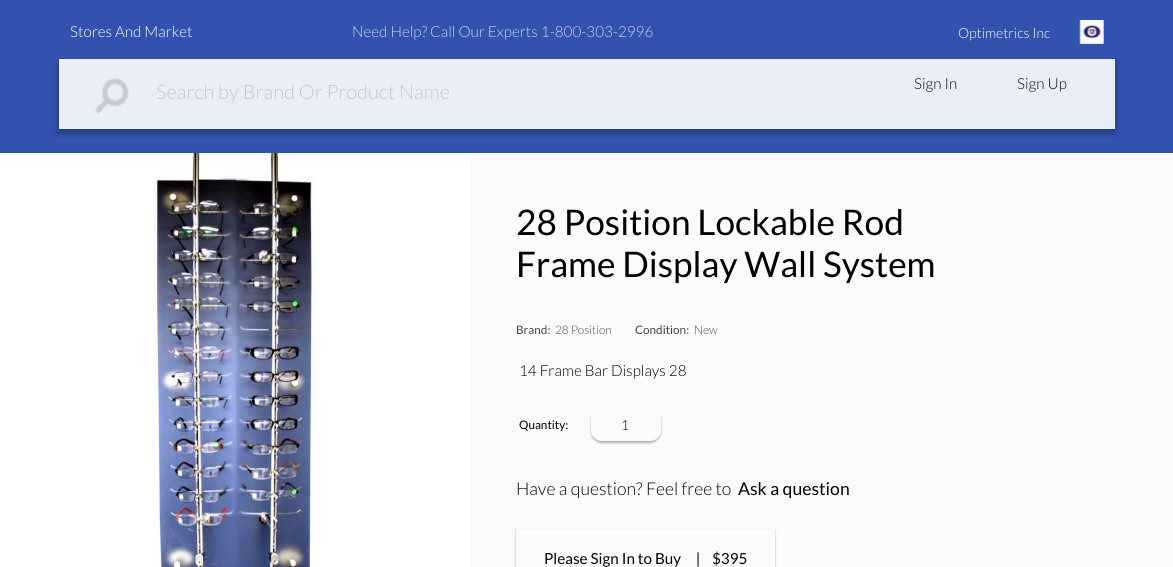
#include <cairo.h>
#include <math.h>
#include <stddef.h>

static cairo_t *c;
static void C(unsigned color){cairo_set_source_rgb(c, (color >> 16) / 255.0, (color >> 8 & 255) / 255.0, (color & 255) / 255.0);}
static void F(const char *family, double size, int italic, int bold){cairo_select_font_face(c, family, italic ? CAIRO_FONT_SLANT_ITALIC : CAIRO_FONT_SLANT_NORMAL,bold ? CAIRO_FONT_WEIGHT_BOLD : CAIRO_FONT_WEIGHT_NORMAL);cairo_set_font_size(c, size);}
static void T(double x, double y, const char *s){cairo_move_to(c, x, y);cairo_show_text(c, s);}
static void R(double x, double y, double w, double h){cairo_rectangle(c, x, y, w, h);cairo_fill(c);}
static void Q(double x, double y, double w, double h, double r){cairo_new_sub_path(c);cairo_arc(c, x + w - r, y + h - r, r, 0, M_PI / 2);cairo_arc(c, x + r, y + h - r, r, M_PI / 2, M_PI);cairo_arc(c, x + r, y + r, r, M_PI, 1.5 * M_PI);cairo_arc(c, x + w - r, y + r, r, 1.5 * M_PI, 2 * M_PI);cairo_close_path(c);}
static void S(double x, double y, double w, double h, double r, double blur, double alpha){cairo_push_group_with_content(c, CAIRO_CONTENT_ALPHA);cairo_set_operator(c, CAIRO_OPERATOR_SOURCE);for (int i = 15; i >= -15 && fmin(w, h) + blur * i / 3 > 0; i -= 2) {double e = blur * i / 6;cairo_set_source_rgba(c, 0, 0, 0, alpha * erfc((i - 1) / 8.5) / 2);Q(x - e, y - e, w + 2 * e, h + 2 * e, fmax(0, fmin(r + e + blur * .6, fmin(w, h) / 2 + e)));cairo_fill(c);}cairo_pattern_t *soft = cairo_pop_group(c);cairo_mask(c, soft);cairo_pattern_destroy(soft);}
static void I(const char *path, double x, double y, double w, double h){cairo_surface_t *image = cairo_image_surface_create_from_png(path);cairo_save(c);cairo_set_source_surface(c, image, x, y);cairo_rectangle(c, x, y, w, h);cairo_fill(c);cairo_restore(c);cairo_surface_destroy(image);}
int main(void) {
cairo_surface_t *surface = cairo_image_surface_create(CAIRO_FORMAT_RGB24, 1173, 567);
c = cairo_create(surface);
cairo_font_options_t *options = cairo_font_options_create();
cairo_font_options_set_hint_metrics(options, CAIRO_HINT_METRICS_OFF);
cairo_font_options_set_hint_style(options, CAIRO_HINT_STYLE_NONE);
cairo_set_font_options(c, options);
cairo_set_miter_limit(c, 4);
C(0x3352af);
cairo_paint(c);
F("Lato Light",15.25,0,0);
C(0xffffff);
T(70,37,"Stores And Market");
C(0xccd4eb);
T(352,37,"Need Help? Call Our Experts 1-800-303-2996");
F("Lato Light",14,0,0);
C(0xffffff);
T(958,38,"Optimetrics Inc");
I("1.png",1079,20,25,24);
C(0x050812);
S(59,63,1056,70,0,4,.23);
S(59,63,1056,70,0,4,.16);
C(0xebeef7);
R(59,59,1056,70);
I("2.png",95,78,34,36);
F("Lato Light",20,0,0);
C(0xc3c6cf);
T(156,99,"Search by Brand Or Product Name");
F("Lato Light",15.25,0,0);
C(0x050812);
T(914,89,"Sign In");
T(1017,89,"Sign Up");
C(0xffffff);
R(0,153,470,414);
I("3.png",153,153,164,414);
C(0xfbfbfb);
R(470,153,703,414);
F("Lato",35.25,0,0);
C(0x000000);
T(516,235,"28 Position Lockable Rod");
T(516,277,"Frame Display Wall System");
F("Lato",11.75,0,0);
C(0x454545);
T(516,334,"Brand:");
F("Lato Light",11.75,0,0);
T(555,334,"28 Position");
F("Lato",11.75,0,0);
T(635,334,"Condition:");
F("Lato Light",11.75,0,0);
T(694,334,"New");
F("Lato Light",15.25,0,0);
C(0x000000);
T(519,376,"14 Frame Bar Displays 28");
F("Lato",11.75,0,0);
T(519,429,"Quantity:");
cairo_save(c);
cairo_set_fill_rule(c,CAIRO_FILL_RULE_EVEN_ODD);
cairo_new_path(c);
cairo_move_to(c,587,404);
cairo_line_to(c,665,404);
cairo_line_to(c,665,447);
cairo_line_to(c,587,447);
cairo_close_path(c);
cairo_move_to(c,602,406);
cairo_line_to(c,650,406);
cairo_curve_to(c,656,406,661,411,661,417);
cairo_line_to(c,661,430);
cairo_curve_to(c,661,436,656,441,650,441);
cairo_line_to(c,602,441);
cairo_curve_to(c,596,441,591,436,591,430);
cairo_line_to(c,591,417);
cairo_curve_to(c,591,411,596,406,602,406);
cairo_close_path(c);
cairo_clip(c);
C(0x000000);
S(591,408,70,35,11,1,.3);
cairo_restore(c);
F("Lato Light",14,0,0);
T(621,430,"1");
F("Lato Light",17.6,0,0);
T(516,495,"Have a question? Feel free to");
F("Lato",17.6,0,0);
T(738,495,"Ask a question");
cairo_save(c);
cairo_set_fill_rule(c,CAIRO_FILL_RULE_EVEN_ODD);
cairo_new_path(c);
cairo_move_to(c,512,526);
cairo_line_to(c,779,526);
cairo_line_to(c,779,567);
cairo_line_to(c,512,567);
cairo_close_path(c);
cairo_move_to(c,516,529);
cairo_line_to(c,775,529);
cairo_line_to(c,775,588);
cairo_line_to(c,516,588);
cairo_close_path(c);
cairo_clip(c);
C(0x000000);
S(516,530,259,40,0,1,.3);
cairo_restore(c);
F("Lato",15.25,0,0);
T(544,564,"Please Sign In to Buy     |");
T(712,564,"$395");
cairo_surface_write_to_png(surface, "o.png");
cairo_font_options_destroy(options);
cairo_destroy(c);
cairo_surface_destroy(surface);
return 0;
}
